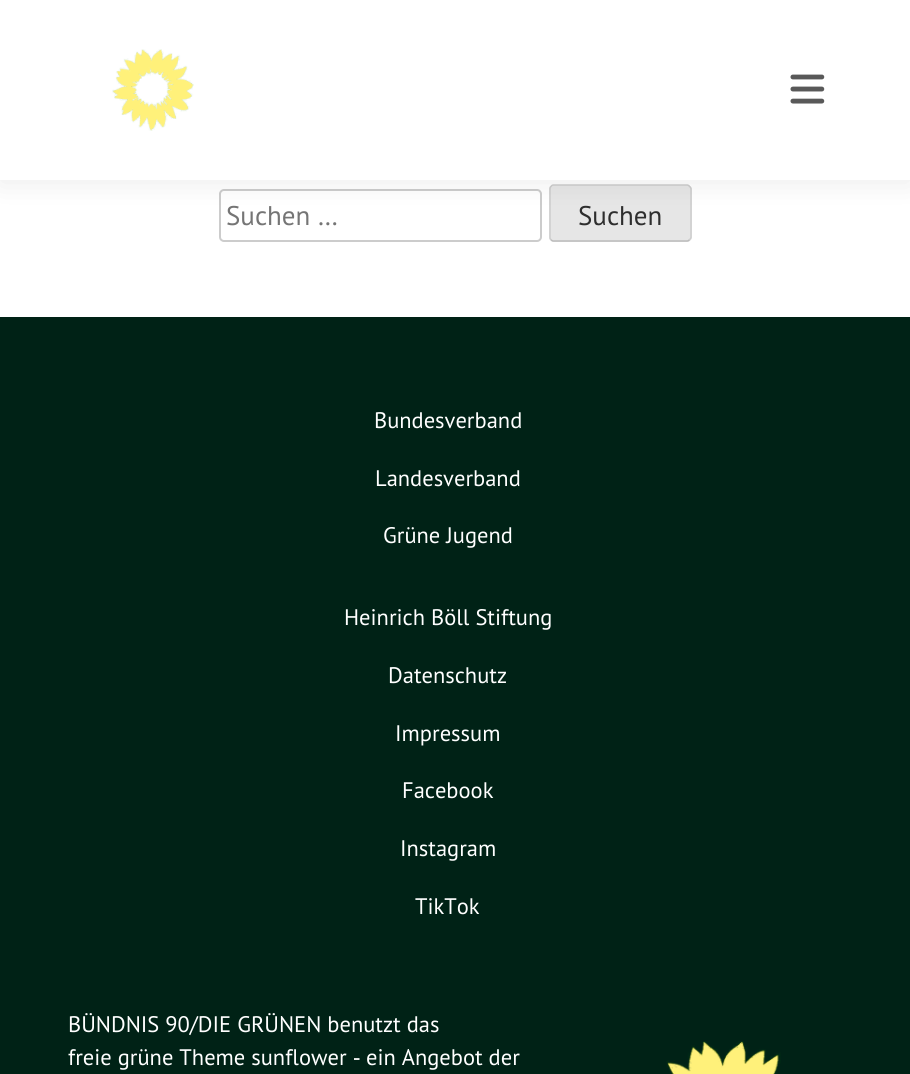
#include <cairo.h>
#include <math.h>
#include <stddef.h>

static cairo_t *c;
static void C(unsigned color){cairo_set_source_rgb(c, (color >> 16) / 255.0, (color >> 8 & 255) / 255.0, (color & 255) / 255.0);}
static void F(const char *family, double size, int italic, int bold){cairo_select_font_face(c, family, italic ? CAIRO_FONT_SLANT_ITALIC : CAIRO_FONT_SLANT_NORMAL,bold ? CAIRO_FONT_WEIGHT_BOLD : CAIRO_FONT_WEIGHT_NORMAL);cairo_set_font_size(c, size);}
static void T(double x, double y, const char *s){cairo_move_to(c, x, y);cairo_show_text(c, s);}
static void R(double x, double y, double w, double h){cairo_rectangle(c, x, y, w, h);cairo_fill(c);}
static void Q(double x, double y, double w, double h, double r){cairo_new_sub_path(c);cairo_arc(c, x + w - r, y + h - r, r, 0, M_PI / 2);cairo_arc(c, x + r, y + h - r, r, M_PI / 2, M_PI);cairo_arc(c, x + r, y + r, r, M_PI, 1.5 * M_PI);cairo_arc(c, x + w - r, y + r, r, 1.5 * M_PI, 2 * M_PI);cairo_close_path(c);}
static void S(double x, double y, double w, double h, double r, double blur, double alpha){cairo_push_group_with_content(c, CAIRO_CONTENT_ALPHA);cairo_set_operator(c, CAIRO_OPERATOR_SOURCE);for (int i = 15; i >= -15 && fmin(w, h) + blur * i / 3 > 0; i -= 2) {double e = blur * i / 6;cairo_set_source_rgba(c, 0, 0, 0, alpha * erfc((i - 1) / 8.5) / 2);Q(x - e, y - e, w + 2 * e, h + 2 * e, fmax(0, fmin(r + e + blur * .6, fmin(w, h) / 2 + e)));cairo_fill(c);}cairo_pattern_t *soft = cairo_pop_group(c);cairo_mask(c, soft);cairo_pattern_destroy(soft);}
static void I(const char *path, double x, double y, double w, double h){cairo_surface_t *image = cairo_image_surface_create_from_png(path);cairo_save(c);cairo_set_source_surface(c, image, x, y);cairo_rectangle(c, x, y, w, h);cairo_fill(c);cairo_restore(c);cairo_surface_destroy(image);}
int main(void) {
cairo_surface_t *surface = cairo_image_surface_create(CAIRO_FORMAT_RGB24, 910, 1074);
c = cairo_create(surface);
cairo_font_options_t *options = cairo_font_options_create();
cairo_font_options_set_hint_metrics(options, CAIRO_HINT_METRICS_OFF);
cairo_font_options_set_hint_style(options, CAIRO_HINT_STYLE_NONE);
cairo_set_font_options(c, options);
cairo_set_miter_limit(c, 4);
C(0xffffff);
cairo_paint(c);
Q(220,190,321,51,4);
C(0xcccccc);
cairo_stroke(c);
C(0xe6e6e6);
Q(549,185,143,57,5);
cairo_fill(c);
cairo_new_path(c);
cairo_move_to(c,689.5,239.5);
cairo_curve_to(c,689,240.5,688,241,687,241);
cairo_line_to(c,553.5,241);
cairo_curve_to(c,552.5,241,551.5,240.5,551,239.5);
C(0xbbbbbb);
cairo_set_line_width(c,1.5);
cairo_stroke(c);
cairo_new_path(c);
cairo_move_to(c,551,239.5);
cairo_curve_to(c,550,239,550,238,550,237);
cairo_line_to(c,550,189);
cairo_curve_to(c,550,188,550,187,551,186.5);
cairo_curve_to(c,551.5,185.5,552.5,185,553.5,185);
cairo_line_to(c,687,185);
cairo_curve_to(c,688,185,689,185.5,689.5,186.5);
cairo_curve_to(c,690.5,187,691,188,691,189);
cairo_line_to(c,691,237);
cairo_curve_to(c,691,238,690.5,239,689.5,239.5);
C(0xcccccc);
cairo_stroke(c);
C(0x000000);
S(0,2,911,180,0,15,.08);
C(0xffffff);
R(0,0,910,180);
I("1.png",112,49,82,82);
I("2.png",790,74,35,30);
F("PT Sans",27,0,0);
C(0x757575);
T(226,225,"Suchen …");
C(0x2e2e2e);
T(578,225,"Suchen");
C(0x002216);
R(0,317,910,757);
F("PT Sans",22.5,0,0);
C(0xffffff);
T(374,428,"Bundesverband");
T(375,486,"Landesverband");
T(383,543,"Grüne Jugend");
T(344,625,"Heinrich Böll Stiftung");
T(388,683,"Datenschutz");
T(395,741,"Impressum");
T(402,798,"Facebook");
T(400,856,"Instagram");
T(415,914,"TikTok");
T(68,1032,"BÜNDNIS 90/DIE GRÜNEN benutzt das");
T(68,1065,"freie grüne Theme sunflower");
F("Liberation Sans",22.5,0,0);
T(353,1065,"‐");
F("PT Sans",22.5,0,0);
T(366,1065,"ein Angebot der");
I("3.png",666,1041,115,33);
cairo_surface_write_to_png(surface, "o.png");
cairo_font_options_destroy(options);
cairo_destroy(c);
cairo_surface_destroy(surface);
return 0;
}
